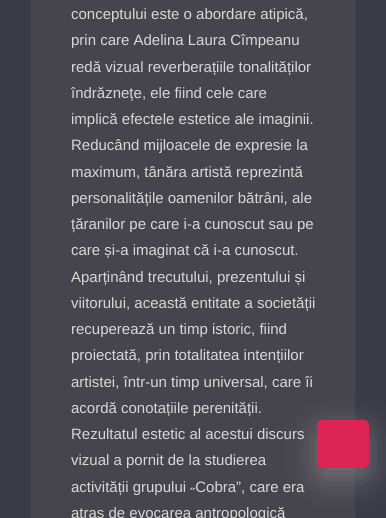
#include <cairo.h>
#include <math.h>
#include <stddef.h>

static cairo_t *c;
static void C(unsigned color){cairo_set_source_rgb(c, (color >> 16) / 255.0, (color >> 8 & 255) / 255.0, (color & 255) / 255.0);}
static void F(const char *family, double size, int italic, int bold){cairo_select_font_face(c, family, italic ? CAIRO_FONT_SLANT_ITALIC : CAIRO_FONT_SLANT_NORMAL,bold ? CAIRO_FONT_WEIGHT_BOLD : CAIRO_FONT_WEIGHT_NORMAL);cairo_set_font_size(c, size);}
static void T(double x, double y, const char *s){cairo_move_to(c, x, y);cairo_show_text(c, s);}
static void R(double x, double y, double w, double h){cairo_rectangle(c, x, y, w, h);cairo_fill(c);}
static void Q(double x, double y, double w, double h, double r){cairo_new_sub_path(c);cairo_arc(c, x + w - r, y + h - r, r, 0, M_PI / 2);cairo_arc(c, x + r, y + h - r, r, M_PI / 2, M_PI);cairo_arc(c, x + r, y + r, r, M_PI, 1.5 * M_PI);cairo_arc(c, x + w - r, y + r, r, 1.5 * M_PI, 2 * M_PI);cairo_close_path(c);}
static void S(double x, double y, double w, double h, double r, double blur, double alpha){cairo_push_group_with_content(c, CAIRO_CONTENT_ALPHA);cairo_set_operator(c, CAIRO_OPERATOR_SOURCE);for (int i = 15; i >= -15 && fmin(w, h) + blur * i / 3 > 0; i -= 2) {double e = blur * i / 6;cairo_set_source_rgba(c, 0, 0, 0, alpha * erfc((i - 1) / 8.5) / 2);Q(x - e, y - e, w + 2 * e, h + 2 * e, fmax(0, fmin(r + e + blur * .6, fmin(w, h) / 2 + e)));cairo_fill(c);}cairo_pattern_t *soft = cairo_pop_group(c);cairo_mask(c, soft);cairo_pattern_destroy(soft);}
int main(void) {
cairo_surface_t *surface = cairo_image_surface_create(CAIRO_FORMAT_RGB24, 386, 518);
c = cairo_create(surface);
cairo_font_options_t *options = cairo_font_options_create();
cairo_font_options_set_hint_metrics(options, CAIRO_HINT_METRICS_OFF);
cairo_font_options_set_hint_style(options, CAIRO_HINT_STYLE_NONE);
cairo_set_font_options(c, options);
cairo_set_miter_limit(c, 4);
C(0x3b3b47);
cairo_paint(c);
C(0x46444c);
R(31,0,324,518);
F("Liberation Sans",15,0,0);
C(0xd8d8d8);
T(71,19,"conceptului este o abordare atipică,");
T(71,45,"prin care Adelina Laura Cîmpeanu");
T(71,72,"redă vizual reverberațiile tonalităților");
T(71,98,"îndrăznețe, ele fiind cele care");
T(71,124,"implică efectele estetice ale imaginii.");
T(71,150,"Reducând mijloacele de expresie la");
T(71,177,"maximum, tânăra artistă reprezintă");
T(71,203,"personalitățile oamenilor bătrâni, ale");
T(71,229,"țăranilor pe care i-a cunoscut sau pe");
T(71,255,"care și-a imaginat că i-a cunoscut.");
T(71,282,"Aparținând trecutului, prezentului și");
T(71,308,"viitorului, această entitate a societății");
T(71,334,"recuperează un timp istoric, fiind");
T(71,360,"proiectată, prin totalitatea intențiilor");
T(71,387,"artistei, într-un timp universal, care îi");
T(71,413,"acordă conotațiile perenității.");
T(71,439,"Rezultatul estetic al acestui discurs");
T(71,465,"vizual a pornit de la studierea");
T(71,492,"activității grupului ˶Cobra”, care era");
T(71,518,"atras de evocarea antropologică");
cairo_save(c);
cairo_set_fill_rule(c,CAIRO_FILL_RULE_EVEN_ODD);
cairo_new_path(c);
cairo_move_to(c,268,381);
cairo_line_to(c,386,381);
cairo_line_to(c,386,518);
cairo_line_to(c,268,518);
cairo_close_path(c);
cairo_move_to(c,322,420);
cairo_line_to(c,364,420);
cairo_curve_to(c,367,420,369,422,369,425);
cairo_line_to(c,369,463);
cairo_curve_to(c,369,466,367,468,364,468);
cairo_line_to(c,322,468);
cairo_curve_to(c,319,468,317,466,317,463);
cairo_line_to(c,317,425);
cairo_curve_to(c,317,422,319,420,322,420);
cairo_close_path(c);
cairo_clip(c);
C(0xc5c5c5);
S(317,430,52,48,5,16,.39);
cairo_restore(c);
cairo_set_source_rgba(c,0.882,0.141,0.329,0.98);
Q(317,420,52,48,5);
cairo_fill(c);
cairo_surface_write_to_png(surface, "o.png");
cairo_font_options_destroy(options);
cairo_destroy(c);
cairo_surface_destroy(surface);
return 0;
}
